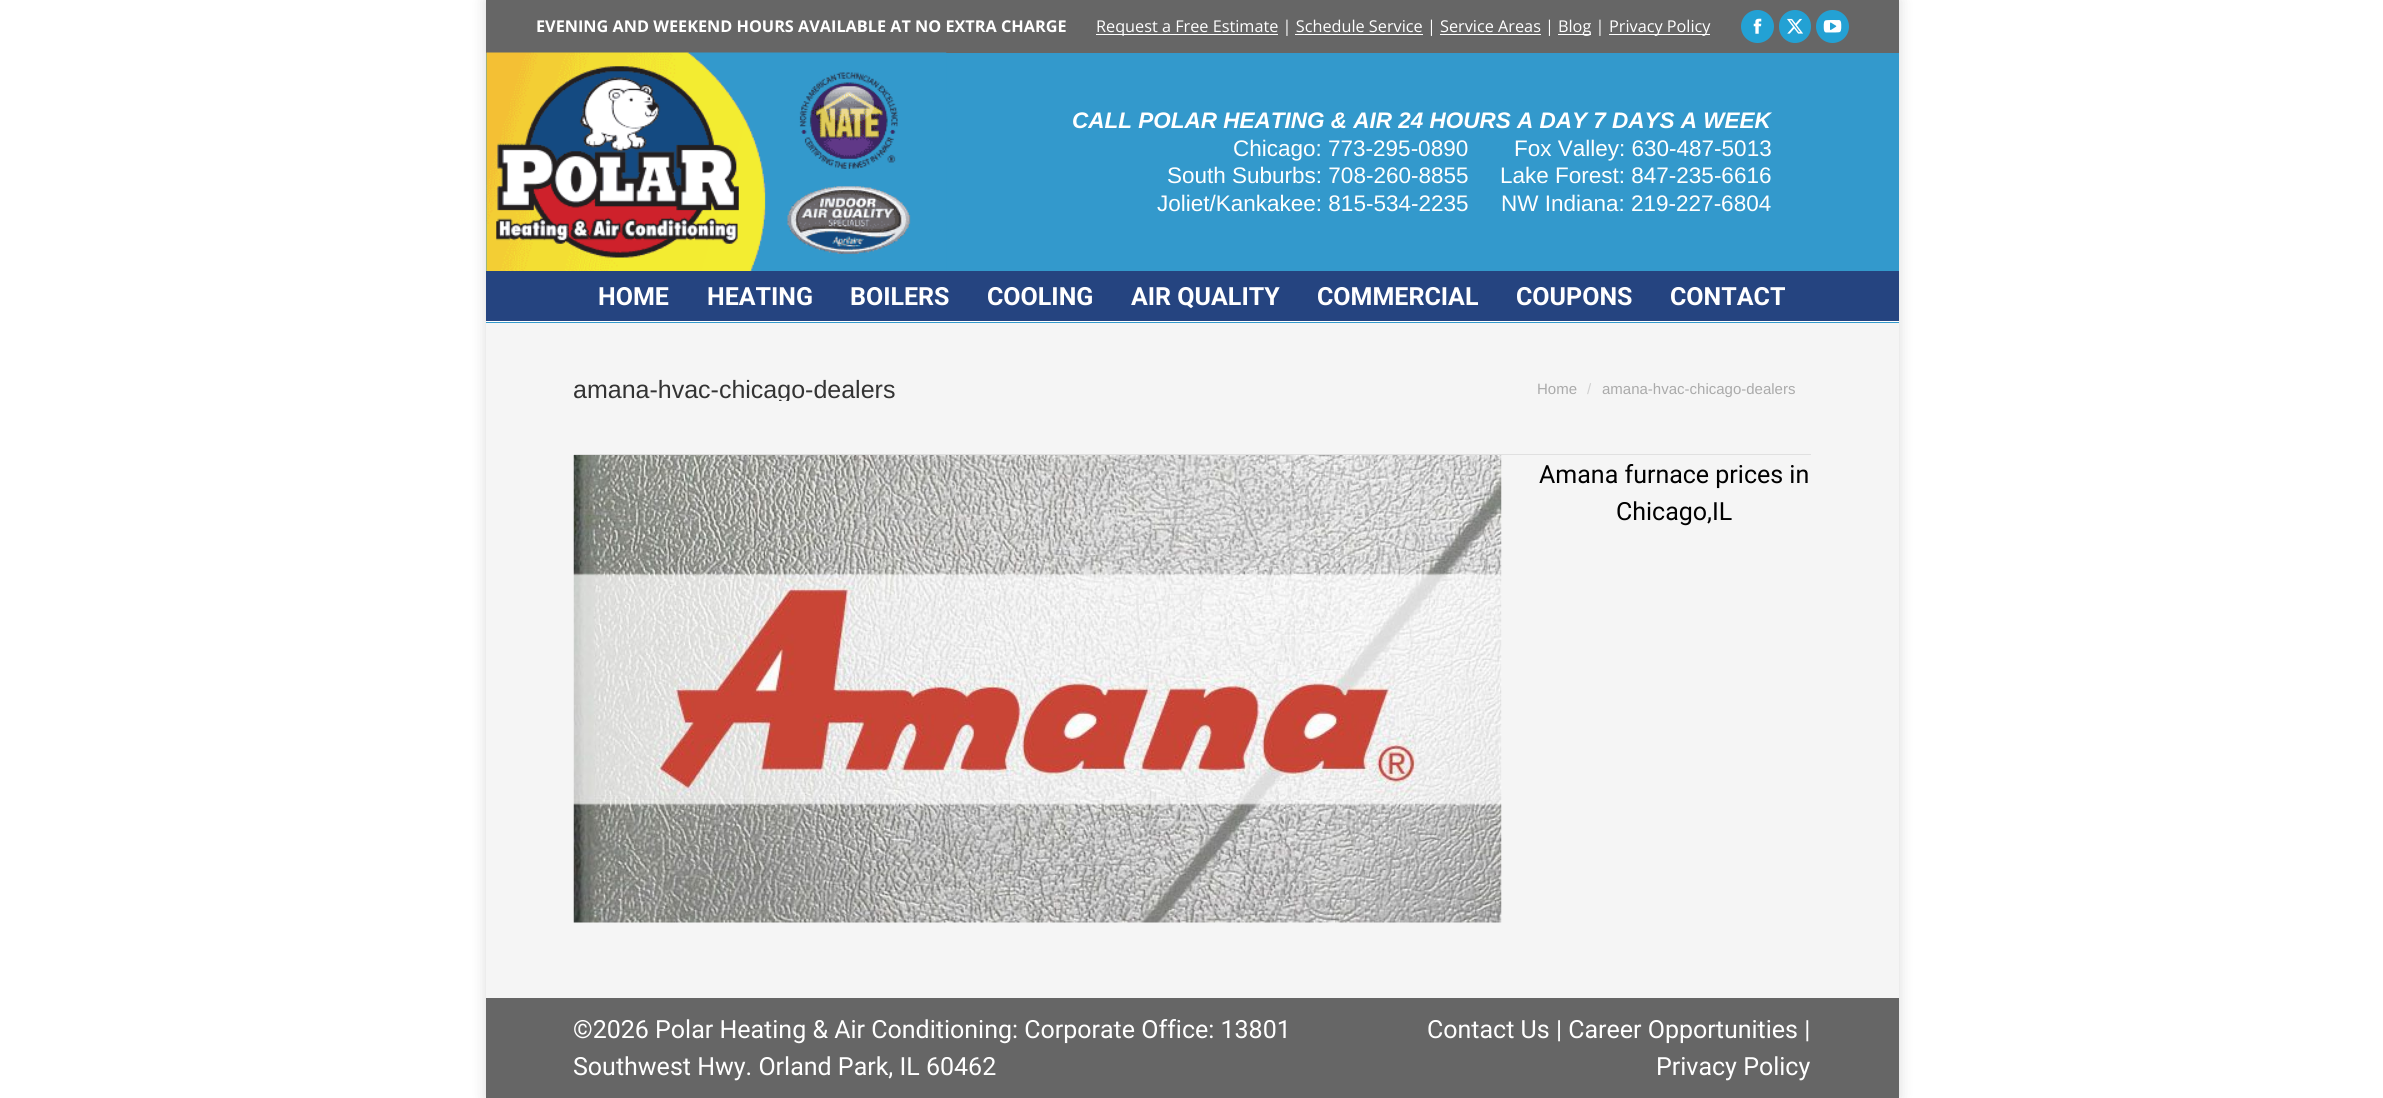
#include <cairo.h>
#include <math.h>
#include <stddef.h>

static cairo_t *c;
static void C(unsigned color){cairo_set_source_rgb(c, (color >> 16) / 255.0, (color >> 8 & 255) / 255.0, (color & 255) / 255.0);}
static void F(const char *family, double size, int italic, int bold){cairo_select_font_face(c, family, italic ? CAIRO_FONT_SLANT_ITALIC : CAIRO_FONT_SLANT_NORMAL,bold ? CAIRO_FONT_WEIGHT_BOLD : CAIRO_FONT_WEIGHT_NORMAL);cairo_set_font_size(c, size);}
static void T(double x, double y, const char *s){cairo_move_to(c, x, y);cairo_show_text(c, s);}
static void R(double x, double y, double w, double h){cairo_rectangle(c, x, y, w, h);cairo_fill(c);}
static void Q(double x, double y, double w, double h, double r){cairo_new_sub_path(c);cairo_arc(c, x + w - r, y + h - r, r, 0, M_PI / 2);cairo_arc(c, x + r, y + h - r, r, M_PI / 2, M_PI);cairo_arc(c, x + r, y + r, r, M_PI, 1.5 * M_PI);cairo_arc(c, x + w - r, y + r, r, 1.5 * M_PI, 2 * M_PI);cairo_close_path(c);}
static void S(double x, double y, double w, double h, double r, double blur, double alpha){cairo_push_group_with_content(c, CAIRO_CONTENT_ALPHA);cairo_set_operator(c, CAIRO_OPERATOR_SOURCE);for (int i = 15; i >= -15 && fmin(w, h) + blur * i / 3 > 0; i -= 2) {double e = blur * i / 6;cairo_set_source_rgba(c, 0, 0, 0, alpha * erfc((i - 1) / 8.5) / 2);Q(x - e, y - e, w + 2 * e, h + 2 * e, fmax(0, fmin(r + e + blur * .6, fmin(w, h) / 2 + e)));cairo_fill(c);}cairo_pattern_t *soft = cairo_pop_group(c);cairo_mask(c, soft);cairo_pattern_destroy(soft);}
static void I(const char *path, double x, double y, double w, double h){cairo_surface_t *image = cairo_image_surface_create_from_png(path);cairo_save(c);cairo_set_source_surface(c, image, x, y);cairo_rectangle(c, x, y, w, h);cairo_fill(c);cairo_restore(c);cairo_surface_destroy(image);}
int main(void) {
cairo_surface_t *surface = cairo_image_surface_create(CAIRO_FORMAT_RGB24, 2383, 1098);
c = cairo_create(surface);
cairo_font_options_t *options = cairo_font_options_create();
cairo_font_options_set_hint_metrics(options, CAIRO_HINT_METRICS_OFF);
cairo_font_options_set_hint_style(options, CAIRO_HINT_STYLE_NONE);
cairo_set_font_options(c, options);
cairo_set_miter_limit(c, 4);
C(0xffffff);
cairo_paint(c);
C(0x000000);
S(486,0,1413,1098,0,7.5,.15);
C(0xf5f5f5);
R(486,323,1413,675);
C(0x3399cc);
R(486,53,1413,270);
C(0xffffff);
R(486,321,1413,1);
C(0x666666);
R(486,0,1413,53);
F("Open Sans",16.25,0,1);
C(0xffffff);
T(536,32,"EVENING AND WEEKEND HOURS AVAILABLE AT NO EXTRA CHARGE");
R(1096,34,182,1);
F("Open Sans",16.25,0,0);
T(1096,32,"Request a Free Estimate | Schedule Service | Service Areas |");
R(1558,34,33,1);
T(1558,32,"Blog |");
R(1609,34,101,1);
T(1609,32,"Privacy Policy");
R(1295,34,128,1);
R(1440,34,101,1);
C(0x23a1d4);
cairo_new_path(c);
cairo_arc(c,1757.5,26.5,16.5,0,2 * M_PI);
cairo_fill(c);
I("1.png",1753,18,9,16);
Q(1779,10,32,33,16);
cairo_fill(c);
I("2.png",1787,18,16,16);
cairo_arc(c,1832.5,26.5,16.5,0,2 * M_PI);
cairo_fill(c);
I("3.png",1823,20,19,13);
I("4.png",486,52,461,219);
F("Liberation Sans",22.5,1,1);
C(0xffffff);
T(1072,128,"CALL POLAR HEATING & AIR 24 HOURS A DAY 7 DAYS A WEEK");
F("Liberation Sans",22.5,0,0);
T(1233,156,"Chicago: 773-295-0890");
T(1167,183,"South Suburbs: 708-260-8855");
T(1157,211,"Joliet/Kankakee: 815-534-2235");
T(1514,156,"Fox Valley: 630-487-5013");
T(1500,183,"Lake Forest: 847-235-6616");
T(1501,211,"NW Indiana: 219-227-6804");
C(0x254480);
R(486,271,1413,50);
F("Roboto",25,0,1);
C(0xffffff);
T(598,305,"HOME");
T(707,305,"HEATING");
T(850,305,"BOILERS");
T(987,305,"COOLING");
T(1131,305,"AIR QUALITY");
T(1317,305,"COMMERCIAL");
T(1516,305,"COUPONS");
T(1670,305,"CONTACT");
cairo_save(c);
cairo_rectangle(c,574,376,321,25);
cairo_clip(c);
F("Liberation Sans",25,0,0);
C(0x333333);
T(573,398,"amana-hvac-chicago-dealers");
cairo_restore(c);
F("Liberation Sans",15,0,0);
C(0xaaaaaa);
T(1537,394,"Home");
C(0xd0d0d0);
T(1587,394,"/");
C(0xaaaaaa);
T(1602,394,"amana-hvac-chicago-dealers");
C(0xe0e0e0);
R(574,454,1237,1);
I("5.png",573,455,929,468);
F("Roboto",25,0,0);
C(0x000000);
T(1539,483,"Amana furnace prices in");
T(1616,520,"Chicago,IL");
C(0x666666);
R(486,998,1413,100);
C(0xffffff);
T(573,1038,"©2026 Polar Heating & Air Conditioning: Corporate Office: 13801");
T(573,1075,"Southwest Hwy. Orland Park, IL 60462");
T(1427,1038,"Contact Us | Career Opportunities |");
T(1656,1075,"Privacy Policy");
cairo_surface_write_to_png(surface, "o.png");
cairo_font_options_destroy(options);
cairo_destroy(c);
cairo_surface_destroy(surface);
return 0;
}
